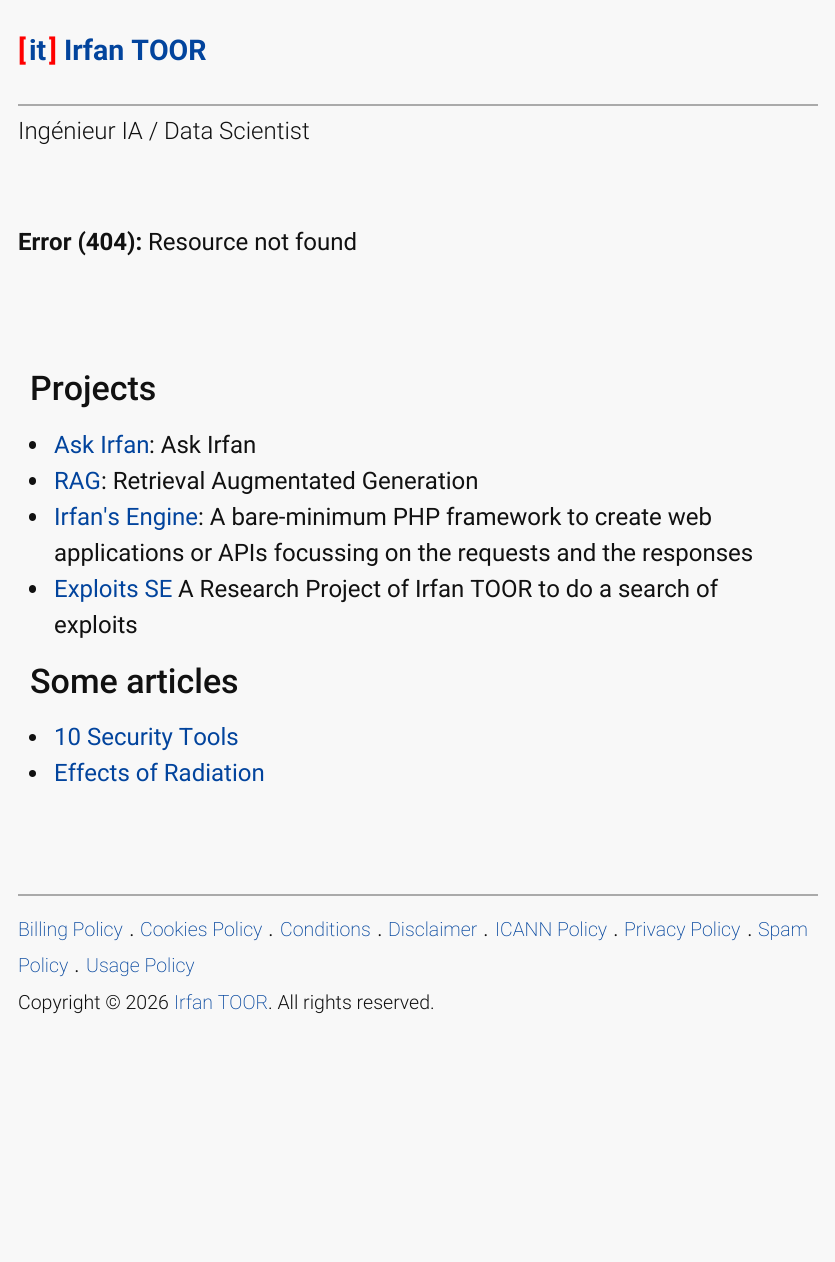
#include <cairo.h>
#include <math.h>
#include <stddef.h>

static cairo_t *c;
static void C(unsigned color){cairo_set_source_rgb(c, (color >> 16) / 255.0, (color >> 8 & 255) / 255.0, (color & 255) / 255.0);}
static void F(const char *family, double size, int italic, int bold){cairo_select_font_face(c, family, italic ? CAIRO_FONT_SLANT_ITALIC : CAIRO_FONT_SLANT_NORMAL,bold ? CAIRO_FONT_WEIGHT_BOLD : CAIRO_FONT_WEIGHT_NORMAL);cairo_set_font_size(c, size);}
static void T(double x, double y, const char *s){cairo_move_to(c, x, y);cairo_show_text(c, s);}
static void R(double x, double y, double w, double h){cairo_rectangle(c, x, y, w, h);cairo_fill(c);}
static void Q(double x, double y, double w, double h, double r){cairo_new_sub_path(c);cairo_arc(c, x + w - r, y + h - r, r, 0, M_PI / 2);cairo_arc(c, x + r, y + h - r, r, M_PI / 2, M_PI);cairo_arc(c, x + r, y + r, r, M_PI, 1.5 * M_PI);cairo_arc(c, x + w - r, y + r, r, 1.5 * M_PI, 2 * M_PI);cairo_close_path(c);}
int main(void) {
cairo_surface_t *surface = cairo_image_surface_create(CAIRO_FORMAT_RGB24, 835, 1262);
c = cairo_create(surface);
cairo_font_options_t *options = cairo_font_options_create();
cairo_font_options_set_hint_metrics(options, CAIRO_HINT_METRICS_OFF);
cairo_font_options_set_hint_style(options, CAIRO_HINT_STYLE_NONE);
cairo_set_font_options(c, options);
cairo_set_miter_limit(c, 4);
C(0xf8f8f8);
cairo_paint(c);
F("Roboto",28.5,0,1);
C(0xff0000);
T(18,60,"[");
C(0x02449d);
T(29,60,"it");
C(0xff0000);
T(49,60,"]");
C(0x02449d);
T(64,60,"Irfan TOOR");
C(0xaaaaaa);
R(18,104,800,2);
F("Roboto Light",24,0,0);
C(0x111111);
T(18,139,"Ingénieur IA / Data Scientist");
F("Roboto",24,0,1);
T(18,250,"Error (404):");
F("Roboto",24,0,0);
T(148,250,"Resource not found");
F("Roboto Medium",34,0,0);
T(30,400,"Projects");
Q(29,441,7,8,3.5);
cairo_fill(c);
F("Roboto",24,0,0);
C(0x02449d);
T(54,453,"Ask Irfan");
C(0x111111);
T(149,453,": Ask Irfan");
Q(29,477,7,8,3.5);
cairo_fill(c);
C(0x02449d);
T(54,489,"RAG");
C(0x111111);
T(101,489,": Retrieval Augmentated Generation");
Q(29,513,7,8,3.5);
cairo_fill(c);
C(0x02449d);
T(54,525,"Irfan's Engine");
C(0x111111);
T(198,525,": A bare-minimum PHP framework to create web");
T(54,561,"applications or APIs focussing on the requests and the responses");
Q(29,585,7,8,3.5);
cairo_fill(c);
C(0x02449d);
T(54,597,"Exploits SE");
C(0x111111);
T(178,597,"A Research Project of Irfan TOOR to do a search of");
T(54,633,"exploits");
F("Roboto Medium",34,0,0);
T(30,693,"Some articles");
cairo_new_path(c);
cairo_arc(c,32.5,737.5,3.5,0,2 * M_PI);
cairo_fill(c);
F("Roboto",24,0,0);
C(0x02449d);
T(54,745,"10 Security Tools");
C(0x111111);
cairo_new_path(c);
cairo_arc(c,32.5,773.5,3.5,0,2 * M_PI);
cairo_fill(c);
C(0x02449d);
T(54,781,"Effects of Radiation");
C(0xaaaaaa);
R(18,894,800,2);
F("Roboto ExtraLight",19.5,0,0);
C(0x02449d);
T(18,936,"Billing Policy");
F("Roboto Light",24,0,0);
C(0x111111);
T(129,936,".");
F("Roboto ExtraLight",19.5,0,0);
C(0x02449d);
T(140,936,"Cookies Policy");
F("Roboto Light",24,0,0);
C(0x111111);
T(268,936,".");
F("Roboto ExtraLight",19.5,0,0);
C(0x02449d);
T(280,936,"Conditions");
F("Roboto Light",24,0,0);
C(0x111111);
T(377,936,".");
F("Roboto ExtraLight",19.5,0,0);
C(0x02449d);
T(388,936,"Disclaimer");
F("Roboto Light",24,0,0);
C(0x111111);
T(483,936,".");
F("Roboto ExtraLight",19.5,0,0);
C(0x02449d);
T(495,936,"ICANN Policy");
F("Roboto Light",24,0,0);
C(0x111111);
T(613,936,".");
F("Roboto ExtraLight",19.5,0,0);
C(0x02449d);
T(624,936,"Privacy Policy");
F("Roboto Light",24,0,0);
C(0x111111);
T(747,936,".");
F("Roboto ExtraLight",19.5,0,0);
C(0x02449d);
T(758,936,"Spam");
T(18,972,"Policy");
F("Roboto Light",24,0,0);
C(0x111111);
T(74,972,".");
F("Roboto ExtraLight",19.5,0,0);
C(0x02449d);
T(86,972,"Usage Policy");
F("Roboto Light",19.5,0,0);
C(0x111111);
T(18,1009,"Copyright © 2026");
F("Roboto ExtraLight",19.5,0,0);
C(0x02449d);
T(174,1009,"Irfan TOOR");
F("Roboto Light",19.5,0,0);
C(0x111111);
T(268,1009,". All rights reserved.");
cairo_surface_write_to_png(surface, "o.png");
cairo_font_options_destroy(options);
cairo_destroy(c);
cairo_surface_destroy(surface);
return 0;
}
